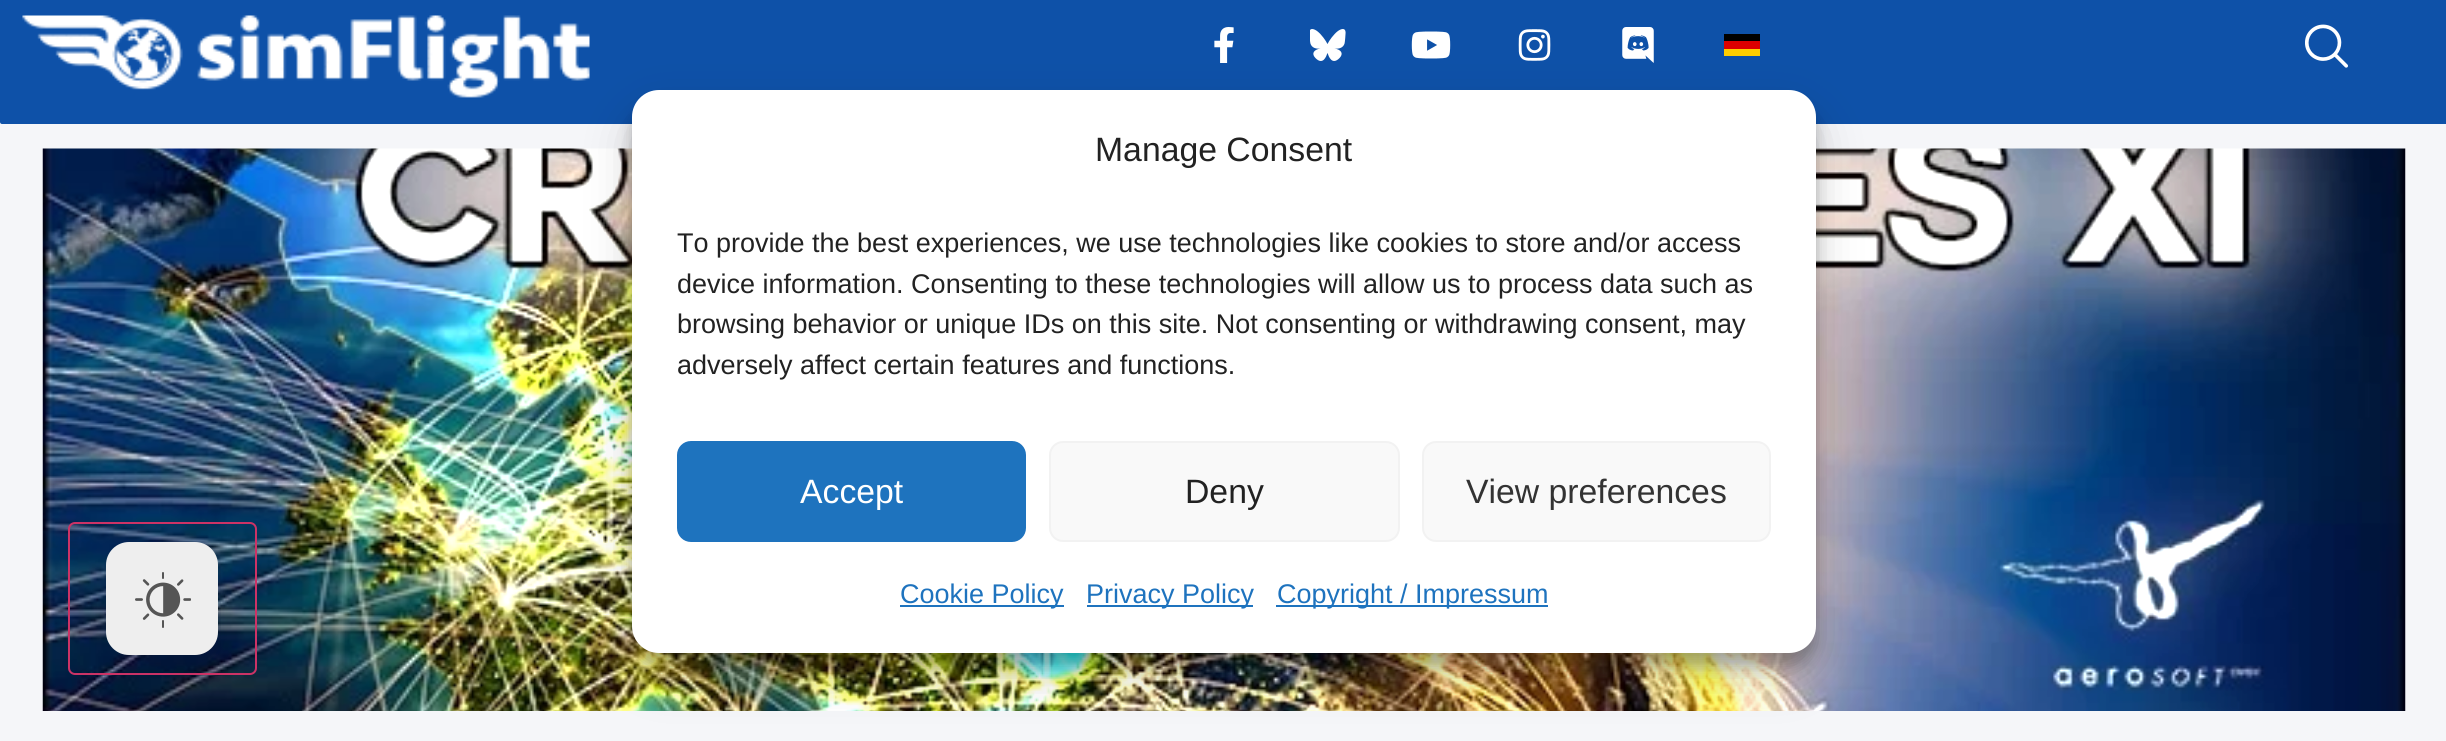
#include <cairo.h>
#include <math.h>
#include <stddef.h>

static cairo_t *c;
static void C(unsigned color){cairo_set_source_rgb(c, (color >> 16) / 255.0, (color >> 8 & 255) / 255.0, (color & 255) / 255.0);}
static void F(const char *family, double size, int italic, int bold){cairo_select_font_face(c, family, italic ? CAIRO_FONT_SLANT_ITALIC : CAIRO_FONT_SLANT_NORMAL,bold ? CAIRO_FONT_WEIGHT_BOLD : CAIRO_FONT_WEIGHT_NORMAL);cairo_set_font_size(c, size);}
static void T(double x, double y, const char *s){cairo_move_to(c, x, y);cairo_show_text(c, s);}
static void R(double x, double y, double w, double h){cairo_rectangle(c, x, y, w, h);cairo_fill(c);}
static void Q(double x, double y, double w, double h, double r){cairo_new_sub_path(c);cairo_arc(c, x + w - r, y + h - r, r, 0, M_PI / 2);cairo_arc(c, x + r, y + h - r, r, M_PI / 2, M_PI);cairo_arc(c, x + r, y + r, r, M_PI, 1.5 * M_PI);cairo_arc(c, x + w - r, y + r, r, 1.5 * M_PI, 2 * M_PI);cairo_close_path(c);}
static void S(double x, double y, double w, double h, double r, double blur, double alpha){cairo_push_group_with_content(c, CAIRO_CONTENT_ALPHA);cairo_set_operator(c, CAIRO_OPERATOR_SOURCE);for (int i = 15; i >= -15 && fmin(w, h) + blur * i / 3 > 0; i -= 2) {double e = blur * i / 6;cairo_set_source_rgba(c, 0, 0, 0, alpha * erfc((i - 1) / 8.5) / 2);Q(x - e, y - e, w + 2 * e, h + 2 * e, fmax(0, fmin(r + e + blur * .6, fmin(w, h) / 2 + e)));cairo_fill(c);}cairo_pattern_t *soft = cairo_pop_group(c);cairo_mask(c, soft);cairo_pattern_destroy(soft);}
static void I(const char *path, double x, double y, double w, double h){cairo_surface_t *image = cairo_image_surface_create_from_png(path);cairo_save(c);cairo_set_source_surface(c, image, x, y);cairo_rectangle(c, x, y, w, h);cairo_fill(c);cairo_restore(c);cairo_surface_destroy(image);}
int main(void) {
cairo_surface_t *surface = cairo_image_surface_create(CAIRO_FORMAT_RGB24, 2446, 741);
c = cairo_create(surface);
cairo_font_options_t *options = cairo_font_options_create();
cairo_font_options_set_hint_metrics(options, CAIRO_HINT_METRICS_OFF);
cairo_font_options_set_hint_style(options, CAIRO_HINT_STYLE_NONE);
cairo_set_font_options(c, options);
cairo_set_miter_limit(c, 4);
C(0xf5f6f9);
cairo_paint(c);
C(0x0e51a8);
Q(0,-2,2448,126,2);
cairo_fill(c);
I("1.png",22,15,568,83);
I("2.png",1214,27,20,36);
I("3.png",1310,29,36,32);
I("4.png",1411,31,40,28);
I("5.png",1518,29,33,32);
I("6.png",1622,27,32,36);
C(0x000000);
R(1724,34,36,7);
C(0xdd0000);
R(1724,41,36,8);
C(0xffce00);
R(1724,49,36,7);
I("7.png",2305,24,43,44);
I("8.png",42,148,2364,563);
C(0x000000);
S(632,104,1184,562,27,7,.23);
S(632,113,1184,562,27,22.5,.19);
C(0xffffff);
Q(632,90,1184,563,27);
cairo_fill(c);
F("Liberation Sans",33.75,0,0);
C(0x222222);
T(1095,161,"Manage Consent");
F("Liberation Sans",27,0,0);
T(677,252,"To provide the best experiences, we use technologies like cookies to store and/or access");
T(677,293,"device information. Consenting to these technologies will allow us to process data such as");
T(677,333,"browsing behavior or unique IDs on this site. Not consenting or withdrawing consent, may");
T(677,374,"adversely affect certain features and functions.");
C(0x1e73be);
Q(678,442,347,99,13);
cairo_fill_preserve(c);
cairo_stroke(c);
F("Liberation Sans",33.75,0,0);
C(0xffffff);
T(800,503,"Accept");
C(0xf9f9f9);
Q(1050,442,349,99,13);
cairo_fill_preserve(c);
C(0xf2f2f2);
cairo_stroke(c);
C(0x222222);
T(1185,503,"Deny");
C(0xf9f9f9);
Q(1423,442,347,99,13);
cairo_fill_preserve(c);
C(0xf2f2f2);
cairo_stroke(c);
C(0x333333);
T(1466,503,"View preferences");
C(0x1e73be);
R(900,605,164,2);
F("Liberation Sans",27,0,0);
T(900,603,"Cookie Policy");
R(1087,605,166,2);
T(1086,603,"Privacy Policy");
R(1276,605,272,2);
T(1277,603,"Copyright / Impressum");
Q(69,523,187,151,6);
C(0xcc3366);
cairo_stroke(c);
Q(105,541,115,115,24);
cairo_set_source_rgba(c,0.035,0.118,0.259,0.08);
cairo_stroke(c);
C(0x091e42);
S(110,556,104,103,18,9,.25);
C(0xeeeeee);
Q(106,542,112,113,23);
cairo_fill(c);
I("9.png",135,572,56,56);
cairo_surface_write_to_png(surface, "o.png");
cairo_font_options_destroy(options);
cairo_destroy(c);
cairo_surface_destroy(surface);
return 0;
}
